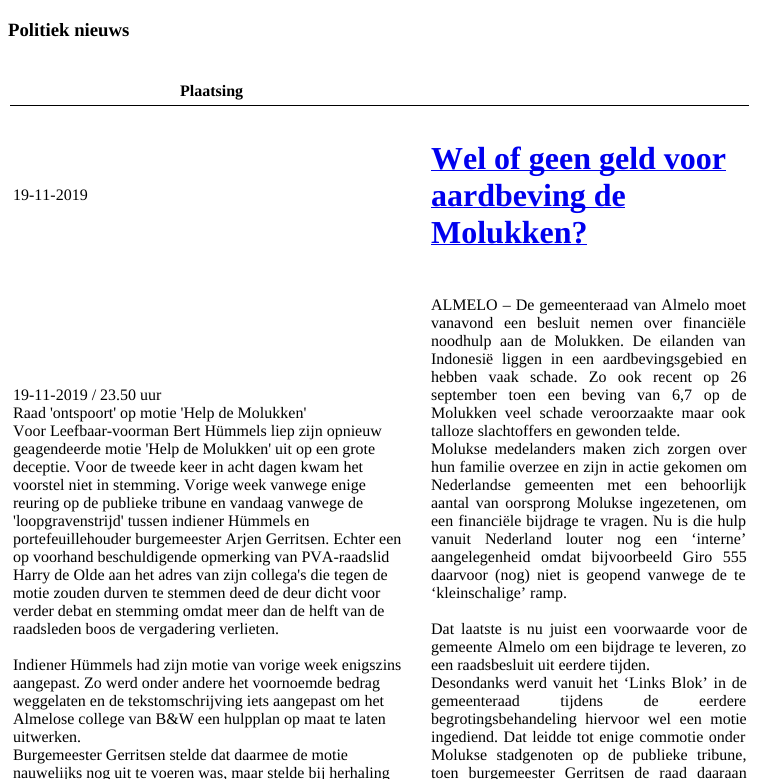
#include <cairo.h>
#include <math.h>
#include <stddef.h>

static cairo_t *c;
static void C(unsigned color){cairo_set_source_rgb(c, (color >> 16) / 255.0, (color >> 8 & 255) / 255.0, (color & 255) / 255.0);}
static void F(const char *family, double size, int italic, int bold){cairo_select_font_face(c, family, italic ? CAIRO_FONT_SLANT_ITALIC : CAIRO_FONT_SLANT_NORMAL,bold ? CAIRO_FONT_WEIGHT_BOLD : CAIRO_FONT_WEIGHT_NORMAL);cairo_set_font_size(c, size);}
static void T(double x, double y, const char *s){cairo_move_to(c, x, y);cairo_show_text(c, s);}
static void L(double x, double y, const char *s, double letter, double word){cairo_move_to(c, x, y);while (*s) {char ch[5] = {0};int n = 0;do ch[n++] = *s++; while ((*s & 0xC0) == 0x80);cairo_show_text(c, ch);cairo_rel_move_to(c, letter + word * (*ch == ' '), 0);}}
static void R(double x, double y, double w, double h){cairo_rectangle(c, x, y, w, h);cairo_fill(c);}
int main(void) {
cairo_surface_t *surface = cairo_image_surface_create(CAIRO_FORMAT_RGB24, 759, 779);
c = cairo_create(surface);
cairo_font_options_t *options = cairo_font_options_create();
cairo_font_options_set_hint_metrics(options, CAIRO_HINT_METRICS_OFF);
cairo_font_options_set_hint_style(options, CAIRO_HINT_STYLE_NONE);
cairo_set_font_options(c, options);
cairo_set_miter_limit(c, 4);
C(0xffffff);
cairo_paint(c);
F("Liberation Serif",18.75,0,1);
C(0x000000);
T(8,36,"Politiek nieuws");
F("Liberation Serif",16,0,1);
T(180,96,"Plaatsing");
R(10,105,739,1);
F("Liberation Serif",16,0,0);
T(13,200,"19-11-2019");
C(0x0000ee);
R(431,170,295,1);
F("Liberation Serif",32,0,1);
T(431,169,"Wel of geen geld voor");
R(431,207,194,1);
T(431,206,"aardbeving de");
T(431,243,"Molukken?");
R(431,244,156,1);
F("Liberation Serif",16,0,0);
C(0x000000);
T(13,400,"19-11-2019 / 23.50 uur");
T(13,418,"Raad 'ontspoort' op motie 'Help de Molukken'");
T(13,436,"Voor Leefbaar-voorman Bert Hümmels liep zijn opnieuw");
T(13,454,"geagendeerde motie 'Help de Molukken' uit op een grote");
T(13,472,"deceptie. Voor de tweede keer in acht dagen kwam het");
T(13,490,"voorstel niet in stemming. Vorige week vanwege enige");
T(13,508,"reuring op de publieke tribune en vandaag vanwege de");
T(13,526,"'loopgravenstrijd' tussen indiener Hümmels en");
T(13,544,"portefeuillehouder burgemeester Arjen Gerritsen. Echter een");
T(13,562,"op voorhand beschuldigende opmerking van PVA-raadslid");
T(13,580,"Harry de Olde aan het adres van zijn collega's die tegen de");
T(13,598,"motie zouden durven te stemmen deed de deur dicht voor");
T(13,616,"verder debat en stemming omdat meer dan de helft van de");
T(13,634,"raadsleden boos de vergadering verlieten.");
T(13,670,"Indiener Hümmels had zijn motie van vorige week enigszins");
T(13,688,"aangepast. Zo werd onder andere het voornoemde bedrag");
T(13,706,"weggelaten en de tekstomschrijving iets aangepast om het");
T(13,724,"Almelose college van B&W een hulpplan op maat te laten");
T(13,742,"uitwerken.");
T(13,760,"Burgemeester Gerritsen stelde dat daarmee de motie");
T(13,778,"nauwelijks nog uit te voeren was, maar stelde bij herhaling");
L(431,310,"ALMELO – De gemeenteraad van Almelo moet",0,1);
L(431,328,"vanavond een besluit nemen over financiële",0,6.75);
L(431,346,"noodhulp aan de Molukken. De eilanden van",0,4.5);
L(431,364,"Indonesië liggen in een aardbevingsgebied en",0,4.75);
L(431,382,"hebben vaak schade. Zo ook recent op 26",0,7.25);
L(431,400,"september toen een beving van 6,7 op de",0,7.75);
L(431,418,"Molukken veel schade veroorzaakte maar ook",0,4);
T(431,436,"talloze slachtoffers en gewonden telde.");
L(431,454,"Molukse medelanders maken zich zorgen over",0,3.5);
L(431,472,"hun familie overzee en zijn in actie gekomen om",0,.5);
L(431,490,"Nederlandse gemeenten met een behoorlijk",0,9.5);
L(431,508,"aantal van oorsprong Molukse ingezetenen, om",0,2.5);
L(431,526,"een financiële bijdrage te vragen. Nu is die hulp",0,1);
L(431,544,"vanuit Nederland louter nog een ‘interne’",0,10);
L(431,562,"aangelegenheid omdat bijvoorbeeld Giro 555",0,6.5);
L(431,580,"daarvoor (nog) niet is geopend vanwege de te",0,3.25);
T(431,598,"‘kleinschalige’ ramp.");
L(431,634,"Dat laatste is nu juist een voorwaarde voor de",0,3);
L(431,652,"gemeente Almelo om een bijdrage te leveren, zo",0,.75);
T(431,670,"een raadsbesluit uit eerdere tijden.");
L(431,688,"Desondanks werd vanuit het ‘Links Blok’ in de",0,1.75);
L(431,706,"gemeenteraad tijdens de eerdere",0,36.5);
L(431,724,"begrotingsbehandeling hiervoor wel een motie",0,4.5);
L(431,742,"ingediend. Dat leidde tot enige commotie onder",0,1.5);
L(431,760,"Molukse stadgenoten op de publieke tribune,",0,5.5);
L(431,778,"toen burgemeester Gerritsen de raad daaraan",0,6);
cairo_surface_write_to_png(surface, "o.png");
cairo_font_options_destroy(options);
cairo_destroy(c);
cairo_surface_destroy(surface);
return 0;
}
